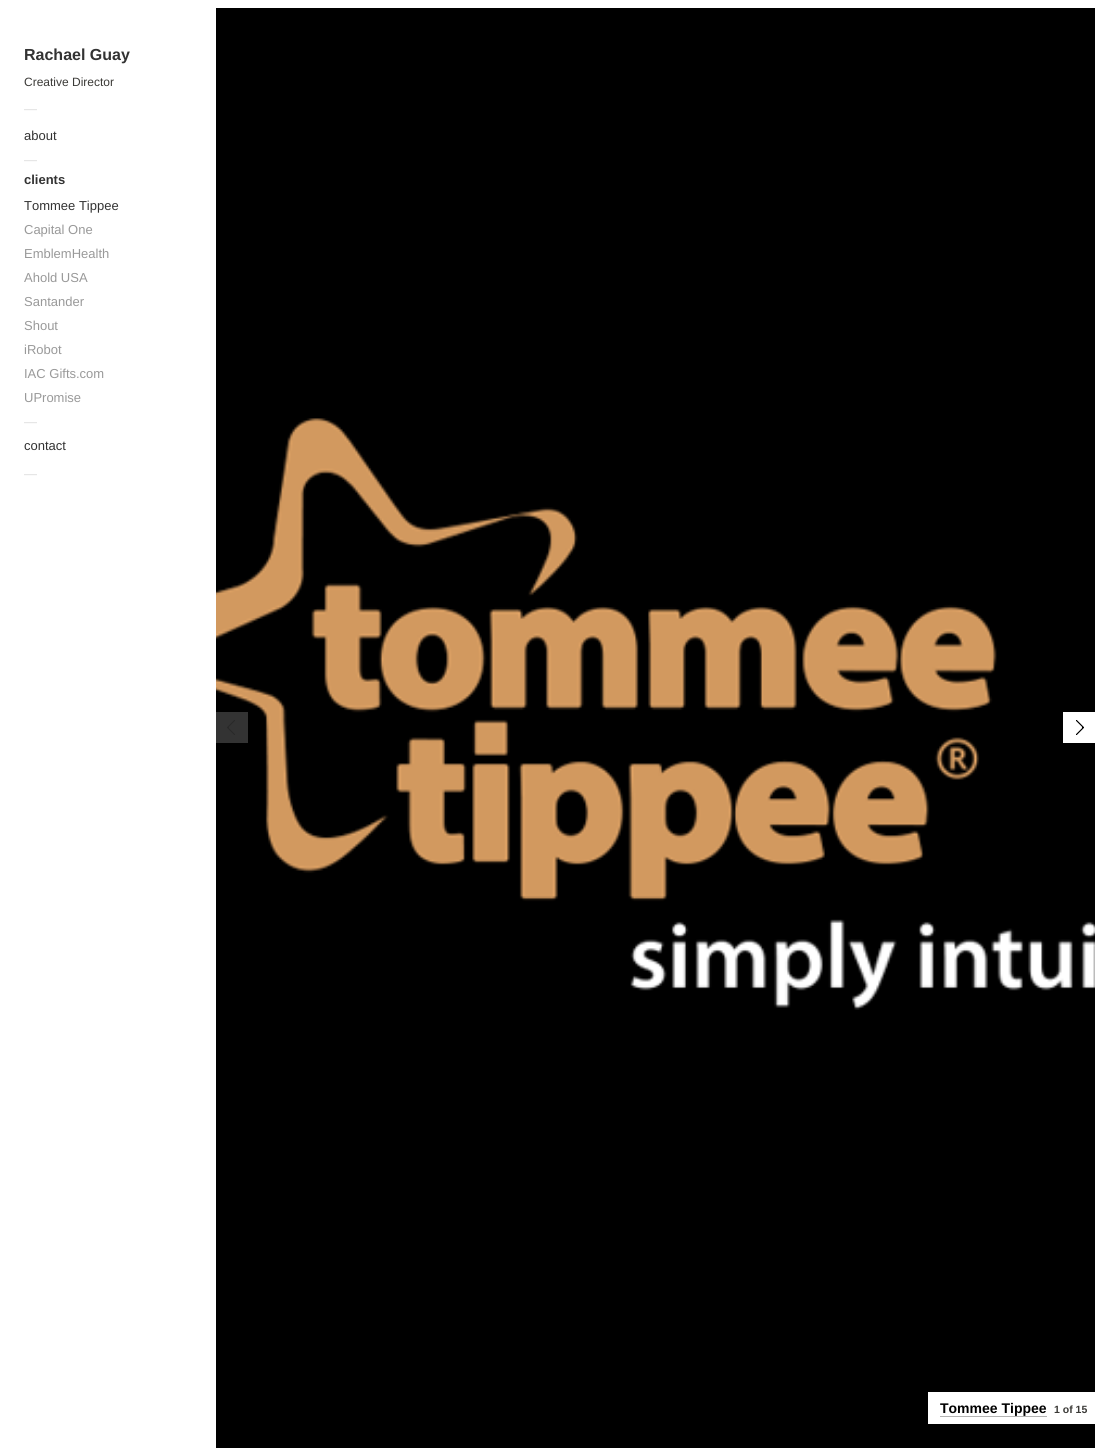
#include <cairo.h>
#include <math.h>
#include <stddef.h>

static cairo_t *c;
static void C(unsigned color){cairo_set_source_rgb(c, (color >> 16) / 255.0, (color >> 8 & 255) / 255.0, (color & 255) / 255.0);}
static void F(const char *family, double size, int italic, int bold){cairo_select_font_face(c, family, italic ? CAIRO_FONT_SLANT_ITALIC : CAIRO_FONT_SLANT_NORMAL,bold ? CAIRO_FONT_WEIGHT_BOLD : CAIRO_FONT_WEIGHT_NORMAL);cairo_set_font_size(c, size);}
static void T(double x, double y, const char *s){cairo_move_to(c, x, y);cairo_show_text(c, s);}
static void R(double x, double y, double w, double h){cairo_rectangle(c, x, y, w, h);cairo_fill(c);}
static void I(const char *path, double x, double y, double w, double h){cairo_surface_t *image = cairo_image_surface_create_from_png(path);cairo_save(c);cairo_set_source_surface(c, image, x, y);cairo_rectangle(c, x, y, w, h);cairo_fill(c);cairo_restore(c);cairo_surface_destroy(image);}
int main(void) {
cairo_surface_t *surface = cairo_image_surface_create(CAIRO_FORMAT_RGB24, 1103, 1456);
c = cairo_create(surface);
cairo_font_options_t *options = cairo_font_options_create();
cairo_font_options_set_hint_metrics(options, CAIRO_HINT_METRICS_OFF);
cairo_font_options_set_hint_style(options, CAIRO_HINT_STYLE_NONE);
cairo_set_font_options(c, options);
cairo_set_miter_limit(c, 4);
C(0xffffff);
cairo_paint(c);
F("Liberation Sans",16,0,1);
C(0x333333);
T(24,60,"Rachael Guay");
F("Liberation Sans",12,0,0);
C(0x3b3a37);
T(24,86,"Creative Director");
F("Liberation Sans",13,0,0);
C(0xdddddd);
T(24,113,"—");
C(0x333333);
T(24,140,"about");
C(0xdddddd);
T(24,164,"—");
F("Liberation Sans",13,0,1);
C(0x333333);
T(24,184,"clients");
F("Liberation Sans",13,0,0);
T(24,210,"Tommee Tippee");
C(0x999999);
T(24,234,"Capital One");
T(24,258,"EmblemHealth");
T(24,282,"Ahold USA");
T(24,306,"Santander");
T(24,330,"Shout");
T(24,354,"iRobot");
T(24,378,"IAC Gifts.com");
T(24,402,"UPromise");
C(0xdddddd);
T(24,426,"—");
C(0x333333);
T(24,450,"contact");
C(0xdddddd);
T(24,478,"—");
I("1.png",216,8,879,1440);
C(0x333333);
R(216,712,32,31);
I("2.png",227,720,8,15);
C(0xffffff);
R(1063,712,32,31);
I("3.png",1076,720,8,15);
R(928,1392,167,32);
F("Liberation Sans",14,0,1);
C(0x000000);
T(940,1413,"Tommee Tippee");
C(0xb3b3b3);
R(940,1416,107,1);
F("Liberation Sans",10.5,0,1);
C(0x3b3a37);
T(1054,1413,"1 of 15");
cairo_surface_write_to_png(surface, "o.png");
cairo_font_options_destroy(options);
cairo_destroy(c);
cairo_surface_destroy(surface);
return 0;
}
